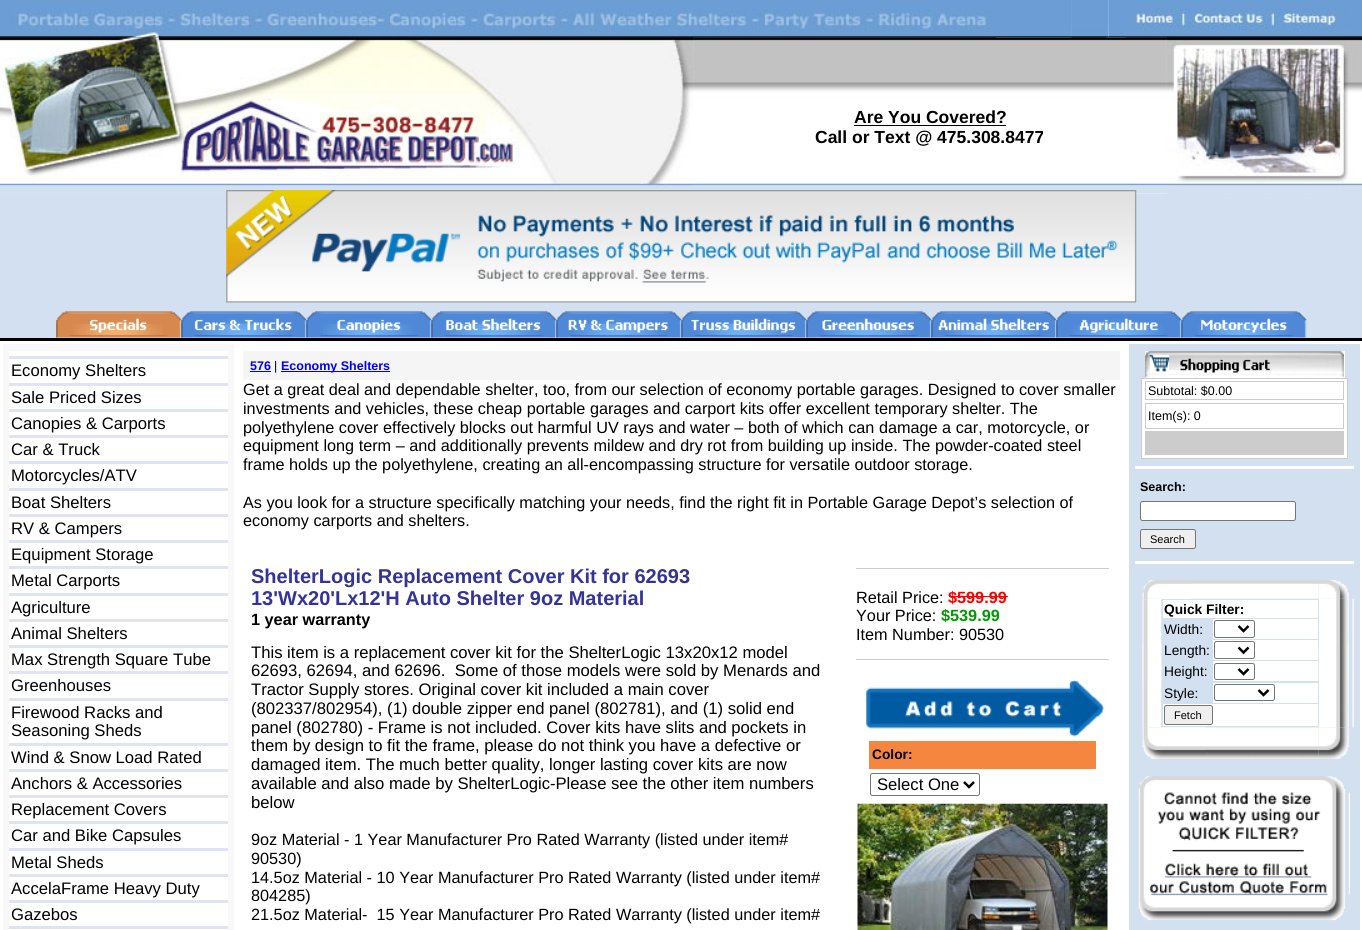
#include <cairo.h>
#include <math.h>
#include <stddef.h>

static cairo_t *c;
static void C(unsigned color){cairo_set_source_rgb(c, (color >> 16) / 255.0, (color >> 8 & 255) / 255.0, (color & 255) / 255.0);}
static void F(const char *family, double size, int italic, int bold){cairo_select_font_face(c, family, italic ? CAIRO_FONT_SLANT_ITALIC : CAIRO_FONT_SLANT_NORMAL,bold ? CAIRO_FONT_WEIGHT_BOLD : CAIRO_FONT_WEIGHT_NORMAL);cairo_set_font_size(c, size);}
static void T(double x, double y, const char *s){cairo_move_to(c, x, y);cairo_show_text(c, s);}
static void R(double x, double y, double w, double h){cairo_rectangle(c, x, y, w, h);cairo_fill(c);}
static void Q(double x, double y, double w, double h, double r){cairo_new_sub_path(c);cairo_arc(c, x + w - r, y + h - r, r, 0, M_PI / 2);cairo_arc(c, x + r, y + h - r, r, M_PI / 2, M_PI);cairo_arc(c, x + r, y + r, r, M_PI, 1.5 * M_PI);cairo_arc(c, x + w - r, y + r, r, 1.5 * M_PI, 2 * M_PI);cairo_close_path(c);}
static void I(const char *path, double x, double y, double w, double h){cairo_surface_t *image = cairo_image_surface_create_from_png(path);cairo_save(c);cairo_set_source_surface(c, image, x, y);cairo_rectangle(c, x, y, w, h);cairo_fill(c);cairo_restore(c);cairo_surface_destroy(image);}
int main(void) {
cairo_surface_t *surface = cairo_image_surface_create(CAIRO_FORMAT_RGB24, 1362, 930);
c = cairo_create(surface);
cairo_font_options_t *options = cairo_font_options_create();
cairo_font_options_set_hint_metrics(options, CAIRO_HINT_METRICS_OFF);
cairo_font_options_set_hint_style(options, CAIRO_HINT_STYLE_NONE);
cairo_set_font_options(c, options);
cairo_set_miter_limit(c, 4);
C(0xffffff);
cairo_paint(c);
I("1.png",0,0,1072,38);
I("7.png",0,37,694,157);
I("3.png",1071,0,38,38);
I("5.png",1108,0,254,38);
I("9.png",693,37,474,157);
I("2.png",0,9,997,29);
I("4.png",1071,0,36,38);
I("10.png",1166,37,196,157);
I("6.png",1126,0,236,38);
I("8.png",0,37,694,157);
F("Liberation Sans",17.5,0,1);
C(0x000000);
T(854,123,"Are You Covered?");
R(854,125,152,1);
T(815,143,"Call or Text @ 475.308.8477");
I("11.png",1166,37,196,157);
C(0xd3e0f1);
R(0,194,1362,144);
I("12.png",226,190,911,113);
I("13.png",56,311,126,27);
I("14.png",181,311,126,27);
I("15.png",306,311,126,27);
I("16.png",431,311,126,27);
I("17.png",556,311,126,27);
I("18.png",681,311,126,27);
I("19.png",806,311,126,27);
I("20.png",931,311,126,27);
I("21.png",1056,311,126,27);
I("22.png",1181,311,126,27);
C(0x000000);
R(0,338,1362,3);
C(0xf8f8f8);
R(3,344,231,586);
C(0xffffff);
R(9,351,219,579);
C(0xdfe3f4);
R(9,356,219,3);
R(9,383,219,3);
F("Liberation Sans",16.65,0,0);
C(0x000000);
T(11,376,"Economy Shelters");
C(0xdfe3f4);
R(9,409,219,3);
C(0x000000);
T(11,403,"Sale Priced Sizes");
C(0xdfe3f4);
R(9,435,219,3);
C(0x000000);
T(11,429,"Canopies & Carports");
C(0xdfe3f4);
R(9,461,219,3);
C(0x000000);
T(11,455,"Car & Truck");
C(0xdfe3f4);
R(9,488,219,3);
C(0x000000);
T(11,481,"Motorcycles/ATV");
C(0xdfe3f4);
R(9,514,219,3);
C(0x000000);
T(11,508,"Boat Shelters");
C(0xdfe3f4);
R(9,540,219,3);
C(0x000000);
T(11,534,"RV & Campers");
C(0xdfe3f4);
R(9,566,219,3);
C(0x000000);
T(11,560,"Equipment Storage");
C(0xdfe3f4);
R(9,593,219,3);
C(0x000000);
T(11,586,"Metal Carports");
C(0xdfe3f4);
R(9,619,219,3);
C(0x000000);
T(11,613,"Agriculture");
C(0xdfe3f4);
R(9,645,219,3);
C(0x000000);
T(11,639,"Animal Shelters");
C(0xdfe3f4);
R(9,671,219,3);
C(0x000000);
T(11,665,"Max Strength Square Tube");
C(0xdfe3f4);
R(9,698,219,3);
C(0x000000);
T(11,691,"Greenhouses");
C(0xdfe3f4);
R(9,743,219,3);
C(0x000000);
T(11,718,"Firewood Racks and");
T(11,736,"Seasoning Sheds");
C(0xdfe3f4);
R(9,769,219,3);
C(0x000000);
T(11,763,"Wind & Snow Load Rated");
C(0xdfe3f4);
R(9,795,219,3);
C(0x000000);
T(11,789,"Anchors & Accessories");
C(0xdfe3f4);
R(9,821,219,3);
C(0x000000);
T(11,815,"Replacement Covers");
C(0xdfe3f4);
R(9,848,219,3);
C(0x000000);
T(11,841,"Car and Bike Capsules");
C(0xdfe3f4);
R(9,874,219,3);
C(0x000000);
T(11,868,"Metal Sheds");
C(0xdfe3f4);
R(9,900,219,3);
C(0x000000);
T(11,894,"AccelaFrame Heavy Duty");
C(0xdfe3f4);
R(9,926,219,3);
C(0x000000);
T(11,920,"Gazebos");
C(0xf5f5f5);
R(243,351,877,29);
F("Liberation Sans",12.5,0,1);
C(0x0000ff);
T(250,370,"576");
R(250,371,21,1);
F("Liberation Sans",12.5,0,0);
C(0x000000);
T(274,370,"|");
C(0x0000ff);
R(281,371,109,1);
F("Liberation Sans",12.5,0,1);
T(281,370,"Economy Shelters");
F("Liberation Sans",16.25,0,0);
C(0x000000);
T(243,395,"Get a great deal and dependable shelter, too, from our selection of economy portable garages. Designed to cover smaller");
T(243,414,"investments and vehicles, these cheap portable garages and carport kits offer excellent temporary shelter. The");
T(243,433,"polyethylene cover effectively blocks out harmful UV rays and water – both of which can damage a car, motorcycle, or");
T(243,451,"equipment long term – and additionally prevents mildew and dry rot from building up inside. The powder-coated steel");
T(243,470,"frame holds up the polyethylene, creating an all-encompassing structure for versatile outdoor storage.");
T(243,508,"As you look for a structure specifically matching your needs, find the right fit in Portable Garage Depot’s selection of");
T(243,526,"economy carports and shelters.");
F("Liberation Sans",20,0,1);
C(0x333399);
T(251,583,"ShelterLogic Replacement Cover Kit for 62693");
T(251,605,"13'Wx20'Lx12'H Auto Shelter 9oz Material");
F("Liberation Sans",16.25,0,1);
C(0x000000);
T(251,625,"1 year warranty");
F("Liberation Sans",16.65,0,0);
T(251,658,"This item is a replacement cover kit for the ShelterLogic 13x20x12 model");
T(251,676,"62693, 62694, and 62696.  Some of those models were sold by Menards and");
T(251,695,"Tractor Supply stores. Original cover kit included a main cover");
T(251,714,"(802337/802954), (1) double zipper end panel (802781), and (1) solid end");
T(251,733,"panel (802780) - Frame is not included. Cover kits have slits and pockets in");
T(251,751,"them by design to fit the frame, please do not think you have a defective or");
T(251,770,"damaged item. The much better quality, longer lasting cover kits are now");
T(251,789,"available and also made by ShelterLogic-Please see the other item numbers");
T(251,808,"below");
F("Liberation Sans",16.25,0,0);
T(251,845,"9oz Material - 1 Year Manufacturer Pro Rated Warranty (listed under item#");
T(251,864,"90530)");
T(251,883,"14.5oz Material - 10 Year Manufacturer Pro Rated Warranty (listed under item#");
T(251,901,"804285)");
T(251,920,"21.5oz Material-  15 Year Manufacturer Pro Rated Warranty (listed under item#");
C(0xcccccc);
R(856,568,253,1);
R(856,659,253,1);
C(0x000000);
T(856,603,"Retail Price:");
F("Liberation Sans",16.25,0,1);
C(0xff0000);
T(948,603,"$599.99");
R(949,596,59,1);
F("Liberation Sans",16.25,0,0);
C(0x000000);
T(856,621,"Your Price:");
F("Liberation Sans",16.25,0,1);
C(0x009900);
T(941,621,"$539.99");
F("Liberation Sans",16.25,0,0);
C(0x000000);
T(856,640,"Item Number: 90530");
I("23.png",866,680,240,57);
C(0xf58640);
R(869,741,227,28);
F("Liberation Sans",13.75,0,1);
C(0x000000);
T(872,759,"Color:");
Q(870.5,773.5,109,22,2);
C(0x767676);
cairo_set_line_width(c,1);
cairo_stroke(c);
cairo_new_path(c);
cairo_move_to(c,964,782);
cairo_line_to(c,969,787);
cairo_line_to(c,974,782);
C(0x000000);
cairo_set_line_width(c,2.5);
cairo_stroke(c);
F("Liberation Sans",16.65,0,0);
T(877,790,"Select One");
I("24.png",857,803,251,127);
C(0xd2e0f0);
R(1129,344,231,586);
C(0xffffff);
R(1145,351,200,27);
I("25.png",1145,351,199,27);
cairo_rectangle(c,1141.5,378.5,206,80);
cairo_fill_preserve(c);
C(0xcccccc);
cairo_set_line_width(c,1);
cairo_stroke(c);
cairo_rectangle(c,1145.5,381.5,198,18);
cairo_stroke(c);
F("Liberation Sans",12.5,0,0);
C(0x000000);
T(1148,395,"Subtotal: $0.00");
cairo_rectangle(c,1145.5,403.5,198,25);
C(0xcccccc);
cairo_stroke(c);
C(0x000000);
T(1148,420,"Item(s): 0");
C(0xcccccc);
R(1145,431,199,24);
C(0xffffff);
R(1135,466,219,3);
F("Liberation Sans",12.5,0,1);
C(0x000000);
T(1140,491,"Search:");
C(0xffffff);
Q(1140.5,501.5,155,19,2);
cairo_fill_preserve(c);
C(0x767676);
cairo_stroke(c);
C(0xefefef);
Q(1140.5,529.5,55,19,2);
cairo_fill_preserve(c);
C(0x767676);
cairo_stroke(c);
F("Liberation Sans",11,0,0);
C(0x000000);
T(1150,543,"Search");
C(0xffffff);
R(1135,561,219,3);
I("27.png",1161,580,158,19);
I("30.png",1142,598,20,130);
I("26.png",1142,580,19,19);
I("28.png",1161,580,29,19);
I("32.png",1319,598,35,130);
I("29.png",1319,580,30,19);
I("31.png",1142,645,20,36);
R(1163,600,155,18);
F("Liberation Sans",13.75,0,1);
C(0x000000);
T(1164,614,"Quick Filter:");
F("Liberation Sans",13.75,0,0);
T(1164,634,"Width:");
C(0xffffff);
R(1213,619,105,20);
Q(1214.5,620.5,40,17,2);
C(0x767676);
cairo_stroke(c);
cairo_new_path(c);
cairo_move_to(c,1238.5,626);
cairo_line_to(c,1243.5,631);
cairo_line_to(c,1248.5,626);
C(0x000000);
cairo_set_line_width(c,2.5);
cairo_stroke(c);
T(1164,655,"Length:");
C(0xffffff);
R(1213,640,105,20);
Q(1214.5,641.5,40,17,2);
C(0x767676);
cairo_set_line_width(c,1);
cairo_stroke(c);
cairo_new_path(c);
cairo_move_to(c,1238.5,647.5);
cairo_line_to(c,1243.5,652.5);
cairo_line_to(c,1248.5,647.5);
C(0x000000);
cairo_set_line_width(c,2.5);
cairo_stroke(c);
T(1164,676,"Height:");
C(0xffffff);
R(1213,661,105,20);
Q(1214.5,663.5,40,16,2);
C(0x767676);
cairo_set_line_width(c,1);
cairo_stroke(c);
cairo_new_path(c);
cairo_move_to(c,1238.5,669);
cairo_line_to(c,1243.5,674);
cairo_line_to(c,1248.5,669);
C(0x000000);
cairo_set_line_width(c,2.5);
cairo_stroke(c);
T(1164,698,"Style:");
C(0xffffff);
R(1213,683,105,20);
Q(1214.5,684.5,60,16,2);
C(0x767676);
cairo_set_line_width(c,1);
cairo_stroke(c);
cairo_new_path(c);
cairo_move_to(c,1258.5,690);
cairo_line_to(c,1263.5,695);
cairo_line_to(c,1268.5,690);
C(0x000000);
cairo_set_line_width(c,2.5);
cairo_stroke(c);
C(0xffffff);
R(1163,704,155,22);
C(0xefefef);
Q(1164.5,705.5,48,19,2);
cairo_fill_preserve(c);
C(0x767676);
cairo_set_line_width(c,1);
cairo_stroke(c);
F("Liberation Sans",11,0,0);
C(0x000000);
T(1174,719,"Fetch");
I("33.png",1318,645,31,36);
I("35.png",1161,727,158,32);
I("34.png",1142,727,20,32);
I("36.png",1161,727,45,32);
I("37.png",1318,727,31,32);
I("38.png",1138,776,212,145);
cairo_surface_write_to_png(surface, "o.png");
cairo_font_options_destroy(options);
cairo_destroy(c);
cairo_surface_destroy(surface);
return 0;
}
